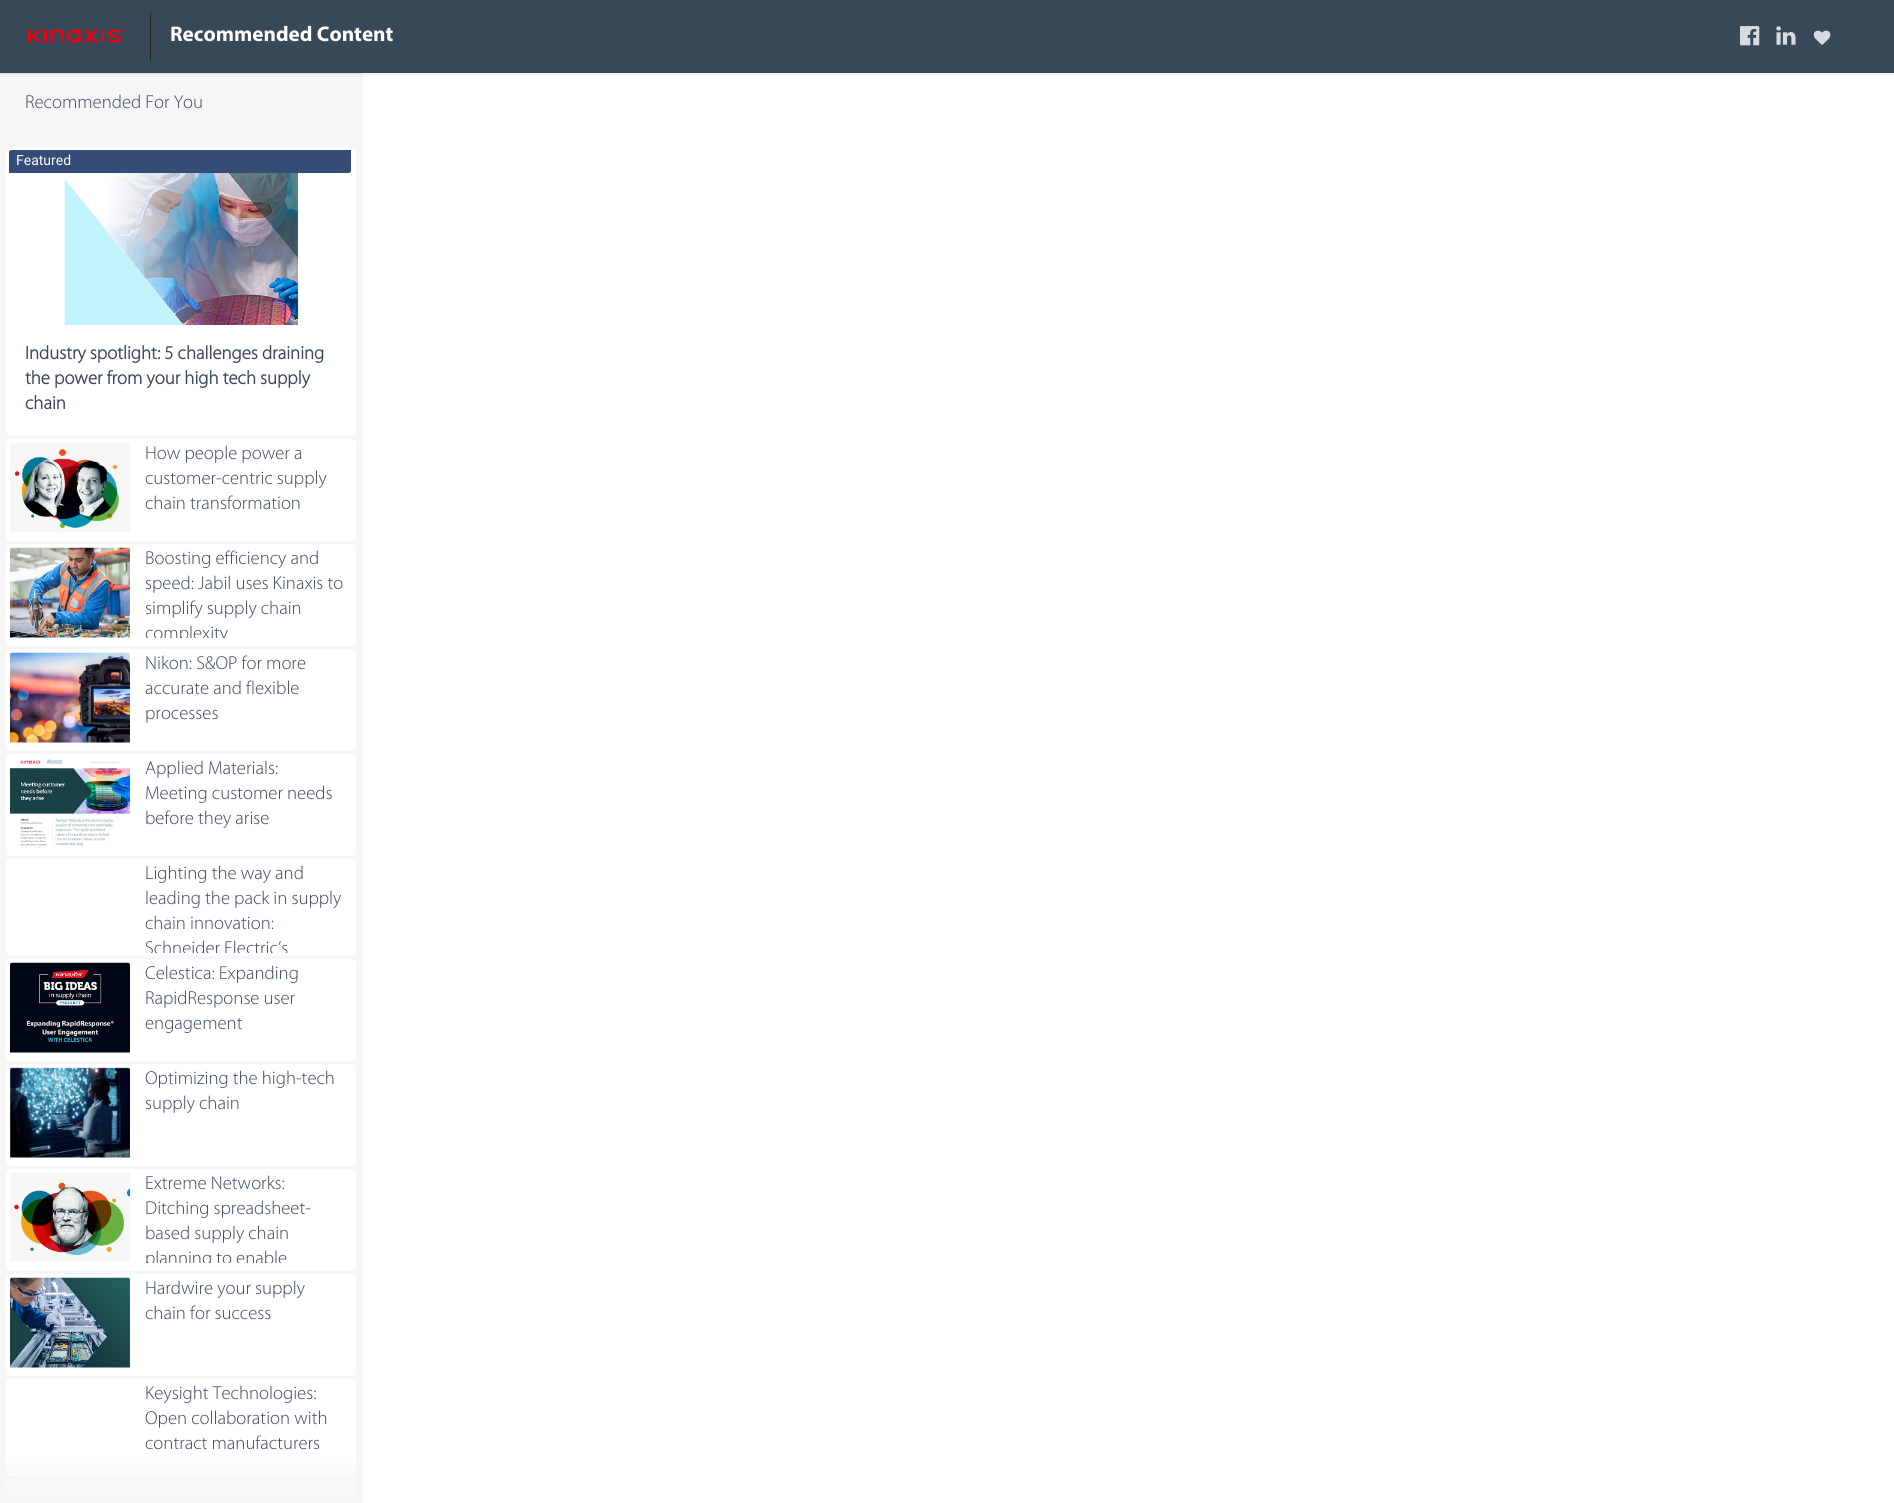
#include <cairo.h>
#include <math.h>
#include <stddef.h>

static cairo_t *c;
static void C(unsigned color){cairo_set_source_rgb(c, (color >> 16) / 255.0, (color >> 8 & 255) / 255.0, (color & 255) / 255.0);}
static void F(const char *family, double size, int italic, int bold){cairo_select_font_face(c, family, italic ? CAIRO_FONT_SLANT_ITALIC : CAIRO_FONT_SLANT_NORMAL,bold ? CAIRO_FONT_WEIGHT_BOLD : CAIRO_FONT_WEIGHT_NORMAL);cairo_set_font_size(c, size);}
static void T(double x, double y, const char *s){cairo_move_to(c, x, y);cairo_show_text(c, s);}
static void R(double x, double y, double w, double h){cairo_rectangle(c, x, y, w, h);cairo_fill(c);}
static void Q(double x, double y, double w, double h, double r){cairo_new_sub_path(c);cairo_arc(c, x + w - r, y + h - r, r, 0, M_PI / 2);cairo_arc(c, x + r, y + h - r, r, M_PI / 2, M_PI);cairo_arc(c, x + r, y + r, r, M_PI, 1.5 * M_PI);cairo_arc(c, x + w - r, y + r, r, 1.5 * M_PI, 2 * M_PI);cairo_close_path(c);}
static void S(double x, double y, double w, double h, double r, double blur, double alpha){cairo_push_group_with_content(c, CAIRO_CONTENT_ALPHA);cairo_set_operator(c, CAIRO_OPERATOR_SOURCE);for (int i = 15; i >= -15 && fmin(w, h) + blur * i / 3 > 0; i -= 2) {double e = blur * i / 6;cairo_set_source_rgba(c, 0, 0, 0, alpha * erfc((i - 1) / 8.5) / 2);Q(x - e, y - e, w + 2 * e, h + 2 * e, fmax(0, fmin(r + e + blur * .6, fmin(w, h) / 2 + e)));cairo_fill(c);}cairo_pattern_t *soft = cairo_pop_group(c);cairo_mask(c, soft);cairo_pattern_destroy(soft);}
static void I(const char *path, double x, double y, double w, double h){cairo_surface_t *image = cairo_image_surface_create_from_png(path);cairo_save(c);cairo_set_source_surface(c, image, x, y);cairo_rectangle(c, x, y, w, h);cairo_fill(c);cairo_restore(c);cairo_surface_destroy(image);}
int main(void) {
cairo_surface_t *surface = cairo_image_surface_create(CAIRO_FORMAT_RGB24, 1894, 1503);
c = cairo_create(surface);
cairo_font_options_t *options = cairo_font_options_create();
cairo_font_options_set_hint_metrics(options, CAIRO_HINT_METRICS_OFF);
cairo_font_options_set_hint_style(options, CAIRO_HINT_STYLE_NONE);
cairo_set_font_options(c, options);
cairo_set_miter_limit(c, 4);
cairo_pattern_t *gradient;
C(0xffffff);
cairo_paint(c);
C(0x374858);
R(0,0,1894,73);
C(0xf6f6f6);
R(0,73,363,1430);
cairo_save(c);
cairo_set_fill_rule(c,CAIRO_FILL_RULE_EVEN_ODD);
cairo_new_path(c);
cairo_move_to(c,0,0);
cairo_line_to(c,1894,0);
cairo_line_to(c,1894,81);
cairo_line_to(c,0,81);
cairo_close_path(c);
cairo_move_to(c,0,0);
cairo_line_to(c,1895,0);
cairo_line_to(c,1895,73);
cairo_line_to(c,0,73);
cairo_close_path(c);
cairo_clip(c);
C(0x000000);
S(0,1,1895,73,0,2,.12);
cairo_restore(c);
C(0x222222);
R(150,13,1,47);
I("1.png",28,29,98,14);
F("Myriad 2",21.25,0,1);
C(0xffffff);
T(170,41,"Recommended Content");
I("2.png",1740,26,20,20);
I("3.png",1776,26,20,19);
I("4.png",1813,30,18,15);
F("Myriad Light",18.75,0,0);
C(0x374858);
T(25,108,"Recommended For You");
C(0xffffff);
Q(6,148,350,288,5);
cairo_fill(c);
C(0x344c77);
cairo_new_path(c);
cairo_move_to(c,11.5,150);
cairo_line_to(c,351,150);
cairo_line_to(c,351,170.5);
cairo_curve_to(c,351,172,350,173,348.5,173);
cairo_line_to(c,9,173);
cairo_line_to(c,9,152.5);
cairo_curve_to(c,9,151,10,150,11.5,150);
cairo_close_path(c);
cairo_fill(c);
F("Roboto",14,0,0);
C(0xffffff);
T(16,165,"Featured");
I("5.png",64,173,236,152);
F("Myriad",18.75,0,1);
C(0x374858);
T(25,359,"Industry spotlight: 5 challenges draining");
T(25,384,"the power from your high tech supply");
T(25,409,"chain");
C(0xffffff);
Q(6,439,350,102,5);
cairo_fill(c);
I("6.png",10,443,120,90);
F("Myriad Light",18.75,0,0);
C(0x374858);
T(145,459,"How people power a");
T(145,484,"customer-centric supply");
T(145,509,"chain transformation");
C(0xffffff);
Q(6,544,350,102,5);
cairo_fill(c);
I("7.png",10,547,120,91);
C(0x374858);
T(145,564,"Boosting efficiency and");
T(145,589,"speed: Jabil uses Kinaxis to");
T(145,614,"simplify supply chain");
cairo_save(c);
cairo_rectangle(c,145,548,199,90);
cairo_clip(c);
T(145,639,"complexity");
cairo_restore(c);
C(0xffffff);
Q(6,649,350,102,5);
cairo_fill(c);
I("8.png",10,652,120,91);
C(0x374858);
T(145,669,"Nikon: S&OP for more");
T(145,694,"accurate and flexible");
T(145,719,"processes");
C(0xffffff);
Q(6,754,350,102,5);
cairo_fill(c);
I("9.png",10,758,120,90);
C(0x374858);
T(145,774,"Applied Materials:");
T(145,799,"Meeting customer needs");
T(145,824,"before they arise");
C(0xffffff);
Q(6,859,350,97,5);
cairo_fill(c);
C(0x374858);
T(145,879,"Lighting the way and");
T(145,904,"leading the pack in supply");
T(145,929,"chain innovation:");
cairo_save(c);
cairo_rectangle(c,145,863,199,90);
cairo_clip(c);
T(145,954,"Schneider Electric’s");
cairo_restore(c);
C(0xffffff);
Q(6,959,350,102,5);
cairo_fill(c);
I("10.png",10,962,120,91);
C(0x374858);
T(145,979,"Celestica: Expanding");
T(145,1004,"RapidResponse user");
T(145,1029,"engagement");
C(0xffffff);
Q(6,1064,350,102,5);
cairo_fill(c);
I("11.png",10,1067,120,91);
C(0x374858);
T(145,1084,"Optimizing the high-tech");
T(145,1109,"supply chain");
C(0xffffff);
Q(6,1169,350,102,5);
cairo_fill(c);
I("12.png",10,1173,120,89);
C(0x374858);
T(145,1189,"Extreme Networks:");
T(145,1214,"Ditching spreadsheet-");
T(145,1239,"based supply chain");
cairo_save(c);
cairo_rectangle(c,145,1173,199,90);
cairo_clip(c);
T(145,1264,"planning to enable");
cairo_restore(c);
C(0xffffff);
Q(6,1274,350,102,5);
cairo_fill(c);
I("13.png",10,1277,120,91);
C(0x374858);
T(145,1294,"Hardwire your supply");
T(145,1319,"chain for success");
C(0xffffff);
Q(6,1379,350,97,5);
cairo_fill(c);
C(0x374858);
T(145,1399,"Keysight Technologies:");
T(145,1424,"Open collaboration with");
T(145,1449,"contract manufacturers");
C(0xffffff);
cairo_new_path(c);
cairo_move_to(c,11,1479);
cairo_line_to(c,351,1479);
cairo_curve_to(c,354,1479,356,1481,356,1484);
cairo_line_to(c,356,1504);
cairo_line_to(c,6,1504);
cairo_line_to(c,6,1484);
cairo_curve_to(c,6,1481,8,1479,11,1479);
cairo_close_path(c);
cairo_fill(c);
gradient = cairo_pattern_create_linear(181,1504,181,1448);
cairo_pattern_add_color_stop_rgba(gradient,0,0.965,0.965,0.965,1);
cairo_pattern_add_color_stop_rgba(gradient,1,0.965,0.965,0.965,0);
cairo_set_source(c,gradient);
cairo_pattern_destroy(gradient);
R(6,1463,350,40);
cairo_surface_write_to_png(surface, "o.png");
cairo_font_options_destroy(options);
cairo_destroy(c);
cairo_surface_destroy(surface);
return 0;
}
